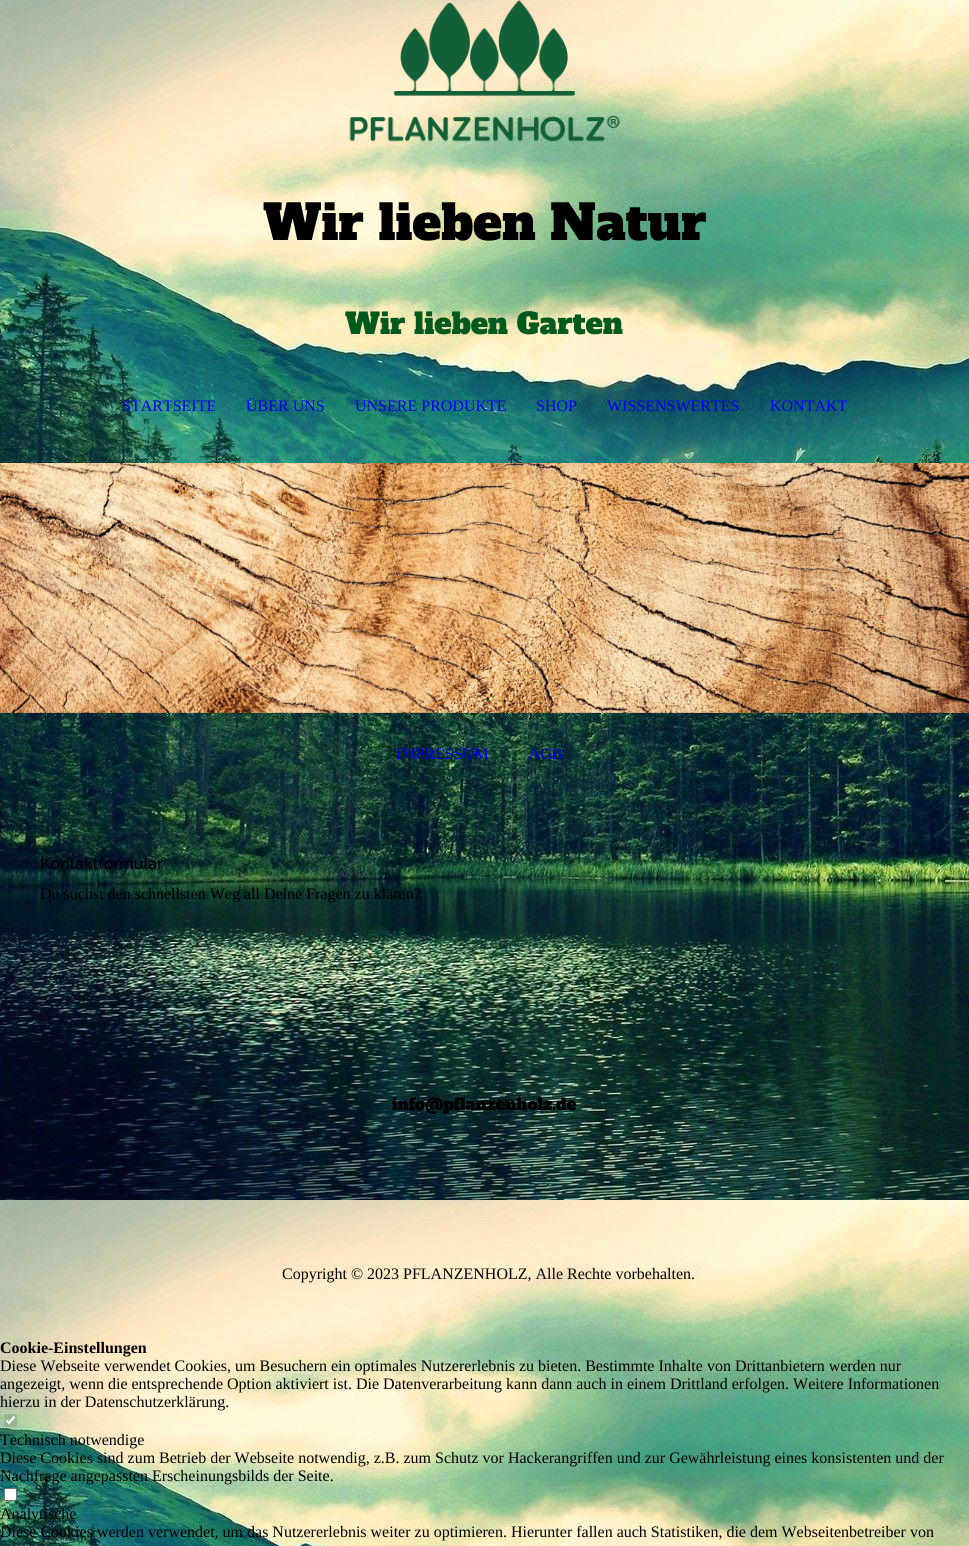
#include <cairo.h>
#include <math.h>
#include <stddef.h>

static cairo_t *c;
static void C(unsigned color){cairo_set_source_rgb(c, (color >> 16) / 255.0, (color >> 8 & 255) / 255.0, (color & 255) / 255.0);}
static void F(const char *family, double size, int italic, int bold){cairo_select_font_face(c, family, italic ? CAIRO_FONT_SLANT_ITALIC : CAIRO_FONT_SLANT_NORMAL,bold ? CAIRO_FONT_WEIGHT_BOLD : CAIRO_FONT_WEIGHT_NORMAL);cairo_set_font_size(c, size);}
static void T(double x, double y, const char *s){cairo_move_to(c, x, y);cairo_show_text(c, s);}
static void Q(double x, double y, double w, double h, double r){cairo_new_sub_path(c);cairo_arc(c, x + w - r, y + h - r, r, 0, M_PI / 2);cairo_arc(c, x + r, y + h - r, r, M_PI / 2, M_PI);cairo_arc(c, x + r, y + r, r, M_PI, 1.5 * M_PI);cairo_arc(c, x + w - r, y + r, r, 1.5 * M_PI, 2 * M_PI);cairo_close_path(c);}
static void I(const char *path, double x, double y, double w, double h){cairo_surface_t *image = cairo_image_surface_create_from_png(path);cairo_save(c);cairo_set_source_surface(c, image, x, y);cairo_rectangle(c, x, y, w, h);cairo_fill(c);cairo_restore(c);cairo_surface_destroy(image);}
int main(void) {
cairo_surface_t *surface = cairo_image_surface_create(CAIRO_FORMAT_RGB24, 969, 1546);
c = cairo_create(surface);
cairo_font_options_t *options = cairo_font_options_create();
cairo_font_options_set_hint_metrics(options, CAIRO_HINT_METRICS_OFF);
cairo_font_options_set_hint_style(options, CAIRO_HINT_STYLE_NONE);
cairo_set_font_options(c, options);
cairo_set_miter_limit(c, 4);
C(0xffffff);
cairo_paint(c);
I("1.png",0,0,969,1546);
I("2.png",349,0,272,142);
F("Alfa Slab One",48.5,0,0);
C(0x000000);
T(263,240,"Wir lieben Natur");
F("Alfa Slab One",29,0,0);
C(0x005a1e);
T(345,334,"Wir lieben Garten");
F("Liberation Serif",16,0,0);
C(0x0000ee);
T(122,411,"STARTSEITE");
T(246,411,"ÜBER UNS");
T(355,411,"UNSERE PRODUKTE");
T(536,411,"SHOP");
T(607,411,"WISSENSWERTES");
T(770,411,"KONTAKT");
I("3.png",0,463,969,250);
T(396,759,"IMPRESSUM");
T(529,759,"AGB");
F("Raleway Medium",16,0,0);
C(0x000000);
T(40,869,"Kontaktformular");
F("Liberation Serif",16,0,0);
T(40,899,"Du suchst den schnellsten Weg all Deine Fragen zu klären?");
F("Alfa Slab One",16,0,0);
T(392,1110,"info@pflanzenholz.de");
F("Liberation Serif",16,0,0);
T(282,1279,"Copyright © 2023 PFLANZENHOLZ, Alle Rechte vorbehalten.");
F("Liberation Serif",16,0,1);
T(0,1353,"Cookie-Einstellungen");
F("Liberation Serif",16,0,0);
T(0,1371,"Diese Webseite verwendet Cookies, um Besuchern ein optimales Nutzererlebnis zu bieten. Bestimmte Inhalte von Drittanbietern werden nur");
T(0,1389,"angezeigt, wenn die entsprechende Option aktiviert ist. Die Datenverarbeitung kann dann auch in einem Drittland erfolgen. Weitere Informationen");
T(0,1407,"hierzu in der Datenschutzerklärung.");
cairo_set_source_rgba(c,0.463,0.463,0.463,0.3);
Q(4,1414,13,13,2);
cairo_fill(c);
cairo_new_path(c);
cairo_move_to(c,6.5,1420.5);
cairo_line_to(c,9,1423);
cairo_line_to(c,14.5,1416.5);
C(0xffffff);
cairo_set_line_width(c,2.1);
cairo_stroke(c);
C(0x000000);
T(0,1445,"Technisch notwendige");
T(0,1463,"Diese Cookies sind zum Betrieb der Webseite notwendig, z.B. zum Schutz vor Hackerangriffen und zur Gewährleistung eines konsistenten und der");
T(0,1481,"Nachfrage angepassten Erscheinungsbilds der Seite.");
C(0xffffff);
Q(4.5,1488.5,12,12,1.5);
cairo_fill_preserve(c);
C(0x767676);
cairo_set_line_width(c,1);
cairo_stroke(c);
C(0x000000);
T(0,1519,"Analytische");
T(0,1537,"Diese Cookies werden verwendet, um das Nutzererlebnis weiter zu optimieren. Hierunter fallen auch Statistiken, die dem Webseitenbetreiber von");
cairo_surface_write_to_png(surface, "o.png");
cairo_font_options_destroy(options);
cairo_destroy(c);
cairo_surface_destroy(surface);
return 0;
}
